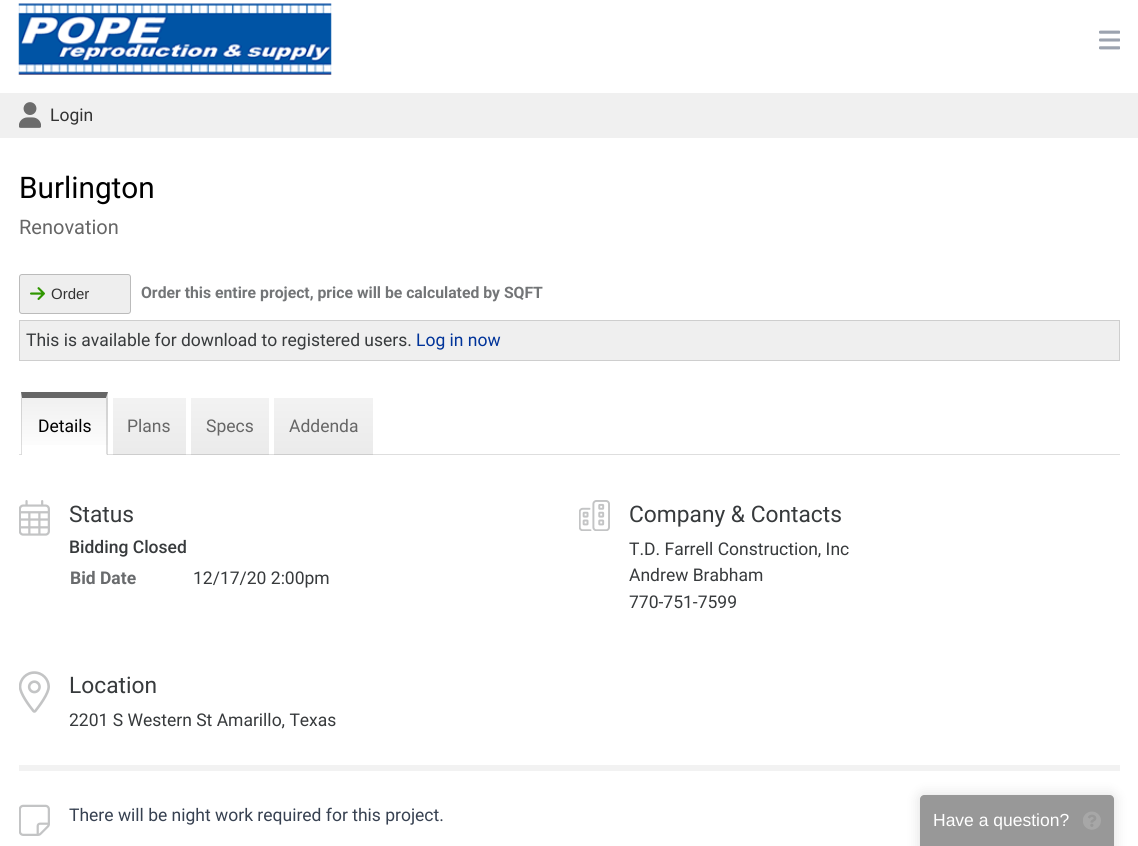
#include <cairo.h>
#include <math.h>
#include <stddef.h>

static cairo_t *c;
static void C(unsigned color){cairo_set_source_rgb(c, (color >> 16) / 255.0, (color >> 8 & 255) / 255.0, (color & 255) / 255.0);}
static void F(const char *family, double size, int italic, int bold){cairo_select_font_face(c, family, italic ? CAIRO_FONT_SLANT_ITALIC : CAIRO_FONT_SLANT_NORMAL,bold ? CAIRO_FONT_WEIGHT_BOLD : CAIRO_FONT_WEIGHT_NORMAL);cairo_set_font_size(c, size);}
static void T(double x, double y, const char *s){cairo_move_to(c, x, y);cairo_show_text(c, s);}
static void R(double x, double y, double w, double h){cairo_rectangle(c, x, y, w, h);cairo_fill(c);}
static void Q(double x, double y, double w, double h, double r){cairo_new_sub_path(c);cairo_arc(c, x + w - r, y + h - r, r, 0, M_PI / 2);cairo_arc(c, x + r, y + h - r, r, M_PI / 2, M_PI);cairo_arc(c, x + r, y + r, r, M_PI, 1.5 * M_PI);cairo_arc(c, x + w - r, y + r, r, 1.5 * M_PI, 2 * M_PI);cairo_close_path(c);}
static void S(double x, double y, double w, double h, double r, double blur, double alpha){cairo_push_group_with_content(c, CAIRO_CONTENT_ALPHA);cairo_set_operator(c, CAIRO_OPERATOR_SOURCE);for (int i = 15; i >= -15 && fmin(w, h) + blur * i / 3 > 0; i -= 2) {double e = blur * i / 6;cairo_set_source_rgba(c, 0, 0, 0, alpha * erfc((i - 1) / 8.5) / 2);Q(x - e, y - e, w + 2 * e, h + 2 * e, fmax(0, fmin(r + e + blur * .6, fmin(w, h) / 2 + e)));cairo_fill(c);}cairo_pattern_t *soft = cairo_pop_group(c);cairo_mask(c, soft);cairo_pattern_destroy(soft);}
static void I(const char *path, double x, double y, double w, double h){cairo_surface_t *image = cairo_image_surface_create_from_png(path);cairo_save(c);cairo_set_source_surface(c, image, x, y);cairo_rectangle(c, x, y, w, h);cairo_fill(c);cairo_restore(c);cairo_surface_destroy(image);}
int main(void) {
cairo_surface_t *surface = cairo_image_surface_create(CAIRO_FORMAT_RGB24, 1138, 846);
c = cairo_create(surface);
cairo_font_options_t *options = cairo_font_options_create();
cairo_font_options_set_hint_metrics(options, CAIRO_HINT_METRICS_OFF);
cairo_font_options_set_hint_style(options, CAIRO_HINT_STYLE_NONE);
cairo_set_font_options(c, options);
cairo_set_miter_limit(c, 4);
cairo_pattern_t *gradient;
C(0xffffff);
cairo_paint(c);
I("1.png",18,3,314,72);
I("2.png",1099,30,21,20);
C(0xf0f0f0);
R(0,93,1138,45);
I("3.png",19,102,22,26);
F("Roboto",17.5,0,0);
C(0x333333);
T(50,121,"Login");
F("Roboto",29.75,0,0);
C(0x000000);
T(19,198,"Burlington");
F("Roboto",20,0,0);
C(0x666666);
T(19,234,"Renovation");
C(0xeeeeee);
Q(19.5,274.5,111,39,2.5);
cairo_fill_preserve(c);
C(0xbbbbbb);
cairo_set_line_width(c,1);
cairo_stroke(c);
I("4.png",30,287,15,13);
F("Liberation Sans",15,0,0);
C(0x333333);
T(51,299,"Order");
F("Roboto",15.75,0,1);
C(0x737577);
T(141,298,"Order this entire project, price will be calculated by SQFT");
C(0xefefef);
cairo_rectangle(c,19.5,320.5,1100,40);
cairo_fill_preserve(c);
C(0xcecece);
cairo_stroke(c);
F("Roboto",17.5,0,0);
C(0x373a3c);
T(26,346,"This is available for download to registered users.");
C(0x003399);
T(416,346,"Log in now");
C(0xdedede);
R(19,454,1101,1);
gradient = cairo_pattern_create_linear(64,398,64,454);
cairo_pattern_add_color_stop_rgba(gradient,0,0.941,0.941,0.941,1);
cairo_pattern_add_color_stop_rgba(gradient,1,1,1,1,1);
cairo_set_source(c,gradient);
cairo_pattern_destroy(gradient);
R(21,398,87,47);
gradient = cairo_pattern_create_linear(64,454,64,510);
cairo_pattern_add_color_stop_rgba(gradient,0,0.82,0.82,0.82,1);
cairo_pattern_add_color_stop_rgba(gradient,1,0.871,0.871,0.871,1);
cairo_set_source(c,gradient);
cairo_pattern_destroy(gradient);
R(21,454,87,1);
C(0x666666);
cairo_new_path(c);
cairo_move_to(c,21,392);
cairo_line_to(c,108,392);
cairo_line_to(c,106,398);
cairo_line_to(c,22,398);
cairo_close_path(c);
cairo_fill(c);
cairo_set_source_rgba(c,0,0,0,0.13);
cairo_new_path(c);
cairo_move_to(c,108,392);
cairo_line_to(c,108,455);
cairo_line_to(c,106,454);
cairo_line_to(c,106,398);
cairo_close_path(c);
cairo_fill(c);
C(0xffffff);
cairo_new_path(c);
cairo_move_to(c,108,455);
cairo_line_to(c,21,455);
cairo_line_to(c,22,454);
cairo_line_to(c,106,454);
cairo_close_path(c);
cairo_fill(c);
cairo_set_source_rgba(c,0,0,0,0.13);
cairo_new_path(c);
cairo_move_to(c,21,455);
cairo_line_to(c,21,392);
cairo_line_to(c,22,398);
cairo_line_to(c,22,454);
cairo_close_path(c);
cairo_fill(c);
C(0x000000);
T(38,432,"Details");
gradient = cairo_pattern_create_linear(149,398,149,455);
cairo_pattern_add_color_stop_rgba(gradient,0,0,0,0,.05);
cairo_pattern_add_color_stop_rgba(gradient,1,0,0,0,.08);
cairo_set_source(c,gradient);
cairo_pattern_destroy(gradient);
R(113,398,73,57);
C(0x666666);
T(127,432,"Plans");
gradient = cairo_pattern_create_linear(230,398,230,455);
cairo_pattern_add_color_stop_rgba(gradient,0,0,0,0,.05);
cairo_pattern_add_color_stop_rgba(gradient,1,0,0,0,.08);
cairo_set_source(c,gradient);
cairo_pattern_destroy(gradient);
R(191,398,78,57);
C(0x666666);
T(206,432,"Specs");
gradient = cairo_pattern_create_linear(323,398,323,455);
cairo_pattern_add_color_stop_rgba(gradient,0,0,0,0,.05);
cairo_pattern_add_color_stop_rgba(gradient,1,0,0,0,.08);
cairo_set_source(c,gradient);
cairo_pattern_destroy(gradient);
R(274,398,99,57);
C(0x666666);
T(289,432,"Addenda");
I("5.png",19,500,31,36);
F("Roboto",22.75,0,0);
C(0x373a3c);
T(69,522,"Status");
F("Roboto Medium",17.5,0,0);
T(69,553,"Bidding Closed");
F("Roboto",17.5,0,1);
C(0x696b6d);
T(70,584,"Bid Date");
F("Roboto",17.5,0,0);
C(0x373a3c);
T(193,584,"12/17/20 2:00pm");
I("6.png",579,500,31,31);
F("Roboto",22.75,0,0);
T(629,522,"Company & Contacts");
F("Roboto",17.5,0,0);
T(629,555,"T.D. Farrell Construction, Inc");
T(629,581,"Andrew Brabham");
T(629,608,"770-751-7599");
I("7.png",19,671,31,42);
F("Roboto",22.75,0,0);
T(69,693,"Location");
F("Roboto",17.5,0,0);
T(69,726,"2201 S Western St Amarillo, Texas");
C(0xf2f2f2);
R(19,765,1101,6);
I("8.png",19,804,31,32);
C(0x374151);
T(69,821,"There will be night work required for this project.");
cairo_save(c);
cairo_set_fill_rule(c,CAIRO_FILL_RULE_EVEN_ODD);
cairo_new_path(c);
cairo_move_to(c,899,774);
cairo_line_to(c,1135,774);
cairo_line_to(c,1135,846);
cairo_line_to(c,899,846);
cairo_close_path(c);
cairo_move_to(c,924,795);
cairo_line_to(c,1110,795);
cairo_curve_to(c,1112,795,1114,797,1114,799);
cairo_line_to(c,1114,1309);
cairo_line_to(c,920,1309);
cairo_line_to(c,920,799);
cairo_curve_to(c,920,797,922,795,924,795);
cairo_close_path(c);
cairo_clip(c);
C(0x000000);
S(918,793,198,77,6,6,.1);
cairo_restore(c);
cairo_set_source_rgba(c,0.2,0.2,0.2,0.5);
cairo_new_path(c);
cairo_move_to(c,924,795);
cairo_line_to(c,1110,795);
cairo_curve_to(c,1112,795,1114,797,1114,799);
cairo_line_to(c,1114,846);
cairo_line_to(c,920,846);
cairo_line_to(c,920,799);
cairo_curve_to(c,920,797,922,795,924,795);
cairo_close_path(c);
cairo_fill(c);
F("Liberation Sans",17.5,0,0);
C(0xffffff);
T(933,826,"Have a question?");
I("9.png",1083,811,18,19);
cairo_surface_write_to_png(surface, "o.png");
cairo_font_options_destroy(options);
cairo_destroy(c);
cairo_surface_destroy(surface);
return 0;
}
